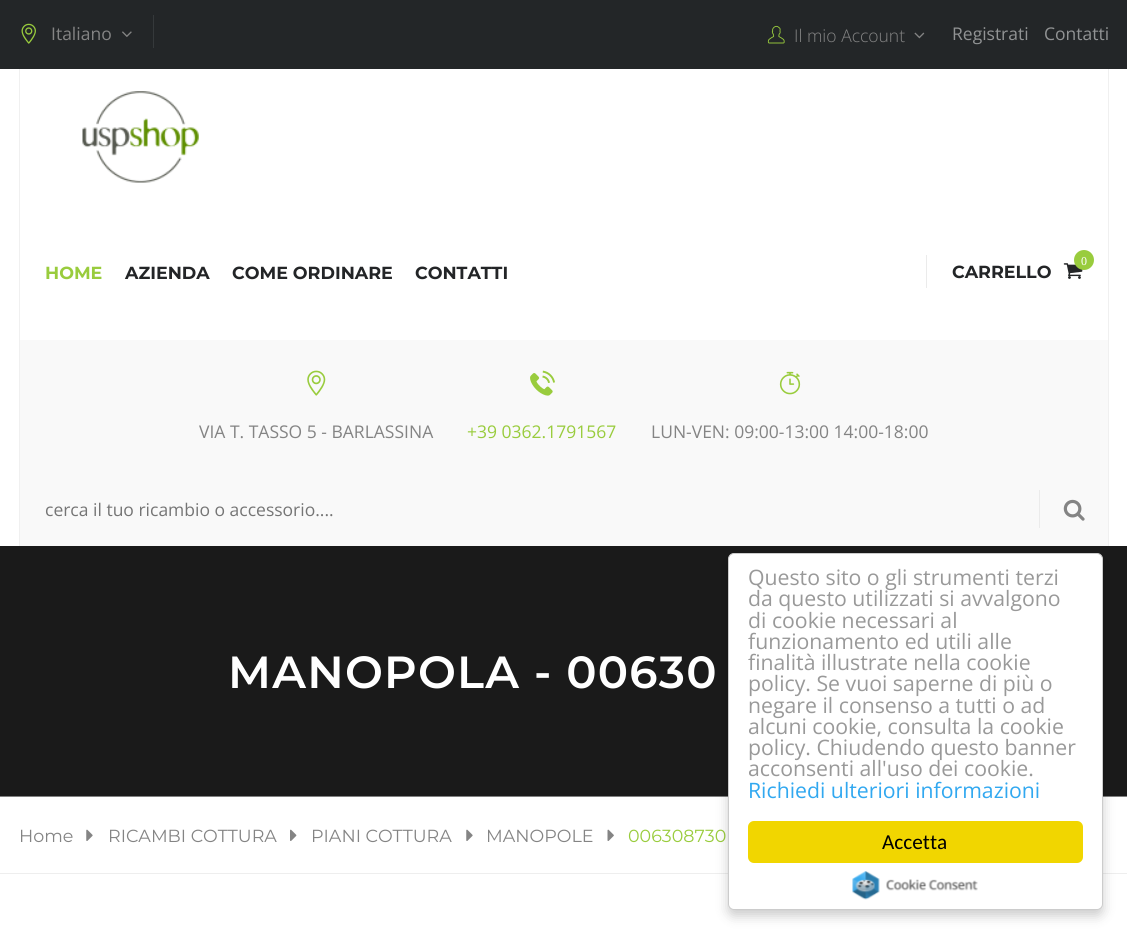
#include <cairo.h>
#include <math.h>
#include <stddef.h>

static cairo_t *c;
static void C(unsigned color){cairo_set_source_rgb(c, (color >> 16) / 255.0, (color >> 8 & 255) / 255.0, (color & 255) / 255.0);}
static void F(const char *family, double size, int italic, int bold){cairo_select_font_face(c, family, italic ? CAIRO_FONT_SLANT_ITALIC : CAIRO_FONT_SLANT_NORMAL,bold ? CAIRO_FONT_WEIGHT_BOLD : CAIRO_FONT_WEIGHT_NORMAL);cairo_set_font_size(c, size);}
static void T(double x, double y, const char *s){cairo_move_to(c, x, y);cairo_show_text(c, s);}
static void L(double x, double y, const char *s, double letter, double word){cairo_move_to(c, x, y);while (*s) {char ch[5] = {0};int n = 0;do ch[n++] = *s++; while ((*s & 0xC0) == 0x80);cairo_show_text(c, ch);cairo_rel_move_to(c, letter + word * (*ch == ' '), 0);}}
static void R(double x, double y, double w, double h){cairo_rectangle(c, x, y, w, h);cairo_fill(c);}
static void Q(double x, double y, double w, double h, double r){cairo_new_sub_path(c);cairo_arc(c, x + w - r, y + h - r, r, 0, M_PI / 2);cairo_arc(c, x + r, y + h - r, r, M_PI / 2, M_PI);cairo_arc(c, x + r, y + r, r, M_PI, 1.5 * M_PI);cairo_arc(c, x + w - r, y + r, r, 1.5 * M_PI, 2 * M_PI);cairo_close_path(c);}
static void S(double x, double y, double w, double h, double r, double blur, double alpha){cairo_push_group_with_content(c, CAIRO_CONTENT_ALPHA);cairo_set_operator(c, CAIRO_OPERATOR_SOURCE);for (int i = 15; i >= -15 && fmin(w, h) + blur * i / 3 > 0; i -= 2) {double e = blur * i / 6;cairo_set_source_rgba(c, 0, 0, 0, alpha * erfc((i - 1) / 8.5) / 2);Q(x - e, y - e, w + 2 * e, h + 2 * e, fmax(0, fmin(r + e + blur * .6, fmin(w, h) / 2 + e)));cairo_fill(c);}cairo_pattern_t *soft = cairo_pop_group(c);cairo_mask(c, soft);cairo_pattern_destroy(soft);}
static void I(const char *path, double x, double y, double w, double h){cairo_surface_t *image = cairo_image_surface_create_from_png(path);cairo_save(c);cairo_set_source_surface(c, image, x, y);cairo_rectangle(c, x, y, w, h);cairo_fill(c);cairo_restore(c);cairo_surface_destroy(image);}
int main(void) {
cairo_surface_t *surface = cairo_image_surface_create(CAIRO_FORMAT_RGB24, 1127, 934);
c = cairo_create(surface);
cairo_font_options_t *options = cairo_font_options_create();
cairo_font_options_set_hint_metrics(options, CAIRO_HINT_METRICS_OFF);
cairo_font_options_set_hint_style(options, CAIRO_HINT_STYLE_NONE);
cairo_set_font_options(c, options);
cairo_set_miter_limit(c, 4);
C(0xffffff);
cairo_paint(c);
C(0x232628);
R(0,0,1127,69);
C(0x35393b);
R(153,15,1,33);
I("1.png",21,23,15,21);
F("Open Sans",17.5,0,0);
C(0x848484);
T(51,40,"Italiano");
I("2.png",122,31,10,6);
I("3.png",767,25,18,19);
F("Open Sans Light",17.5,0,0);
T(794,42,"Il mio Account");
I("4.png",914,32,11,7);
F("Open Sans",17.5,0,0);
C(0x919394);
T(952,40,"Registrati");
T(1044,40,"Contatti");
I("5.png",82,91,117,92);
F("Montserrat",17.5,0,1);
C(0x99cc3d);
T(45,279,"HOME");
C(0x232527);
T(125,279,"AZIENDA");
T(232,279,"COME ORDINARE");
T(415,279,"CONTATTI");
C(0xebebeb);
R(926,255,1,33);
I("6.png",1063,263,20,16);
C(0x99cc3d);
cairo_arc(c,1084,260,10,0,2 * M_PI);
cairo_fill(c);
F("Liberation Serif",12,0,0);
C(0xffffff);
T(1081,265,"0");
F("Montserrat",17.5,0,1);
C(0x232527);
T(952,278,"CARRELLO");
C(0xf9f9f9);
R(20,340,1088,206);
C(0xf0f0f0);
R(1108,69,1,477);
R(19,69,1,477);
I("7.png",307,370,19,26);
F("Open Sans",17.5,0,0);
C(0x848484);
T(199,438,"VIA T. TASSO 5 - BARLASSINA");
I("8.png",530,370,25,26);
C(0x99cc3d);
T(467,438,"+39 0362.1791567");
I("9.png",779,371,22,24);
C(0x848484);
T(651,438,"LUN-VEN: 09:00-13:00 14:00-18:00");
C(0x757575);
T(45,516,"cerca il tuo ricambio o accessorio....");
C(0xebebeb);
R(1039,490,1,38);
I("10.png",1063,499,22,22);
C(0x808080);
R(0,796,1127,1);
C(0x1a1a1a);
R(0,546,1127,250);
F("Montserrat SemiBold",45,0,0);
C(0xffffff);
L(228,688,"MANOPOLA - 00630",1.25,0);
C(0xeeeeee);
R(0,873,1127,1);
F("Montserrat",17.5,0,0);
C(0x848484);
T(19,842,"Home");
I("11.png",86,829,7,12);
T(108,842,"RICAMBI COTTURA");
I("12.png",290,829,7,12);
T(311,842,"PIANI COTTURA");
I("11.png",466,829,7,12);
T(486,842,"MANOPOLE");
I("13.png",607,829,7,12);
C(0x99cc3d);
T(628,842,"006308730");
C(0x000000);
S(728,559,375,357,6,6,.2);
C(0xffffff);
Q(728.5,553.5,374,356,5.5);
cairo_fill_preserve(c);
C(0xcccccc);
cairo_set_line_width(c,1);
cairo_stroke(c);
F("Open Sans",21.25,0,0);
C(0x999999);
T(748,585,"Questo sito o gli strumenti terzi");
T(748,606,"da questo utilizzati si avvalgono");
T(748,628,"di cookie necessari al");
T(748,649,"funzionamento ed utili alle");
T(748,670,"finalità illustrate nella cookie");
T(748,691,"policy. Se vuoi saperne di più o");
T(748,713,"negare il consenso a tutti o ad");
T(748,734,"alcuni cookie, consulta la cookie");
T(748,755,"policy. Chiudendo questo banner");
T(748,776,"acconsenti all'uso dei cookie.");
C(0x31a8f0);
T(748,798,"Richiedi ulteriori informazioni");
C(0xf1d600);
Q(748,821,335,42,6);
cairo_fill(c);
F("Carlito",21.25,0,0);
C(0x000000);
T(882,849,"Accetta");
I("14.png",852,871,126,29);
cairo_surface_write_to_png(surface, "o.png");
cairo_font_options_destroy(options);
cairo_destroy(c);
cairo_surface_destroy(surface);
return 0;
}
